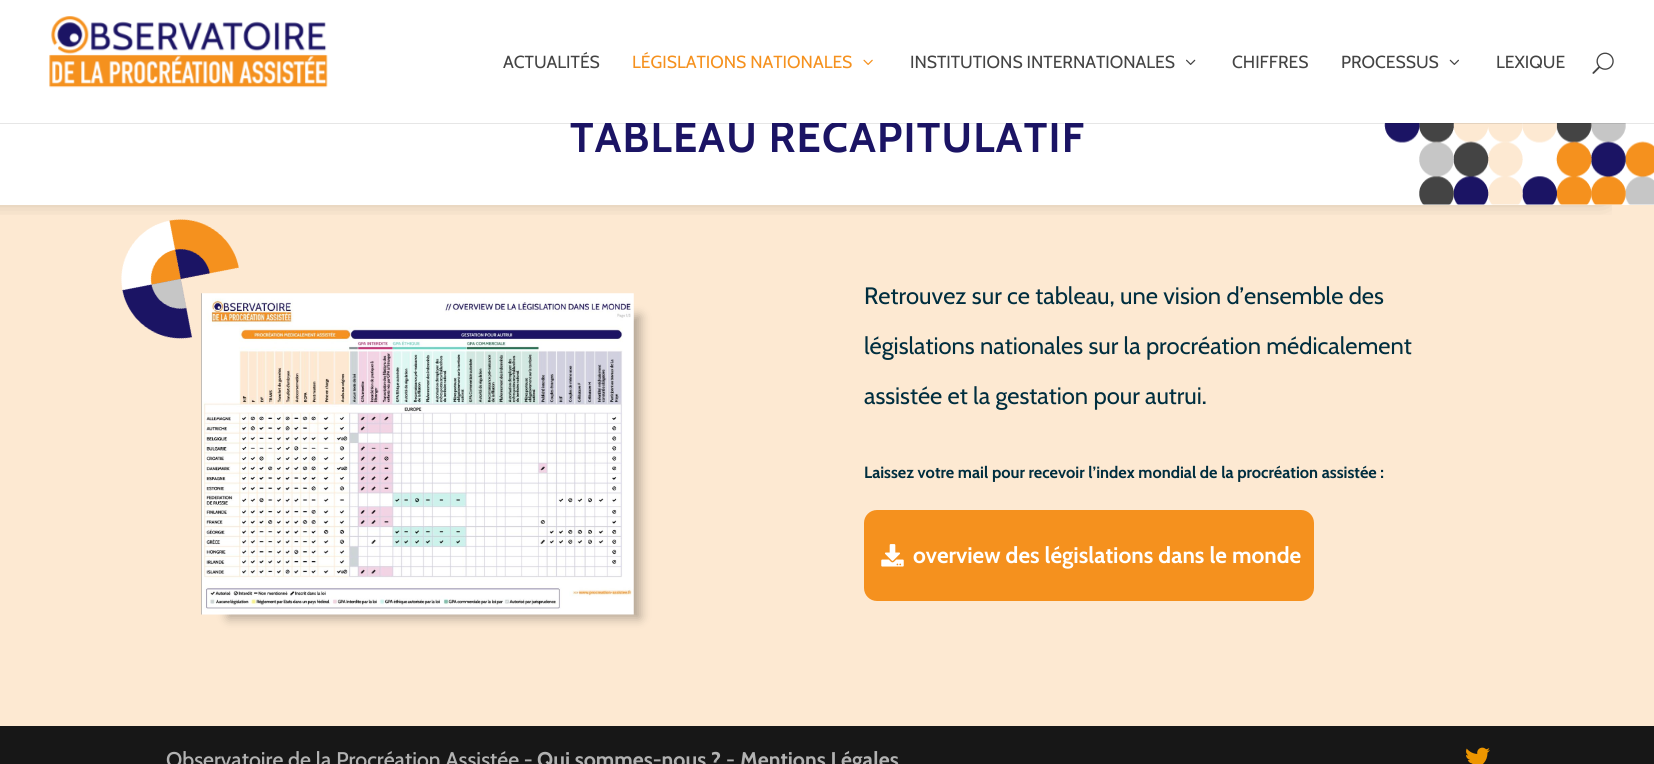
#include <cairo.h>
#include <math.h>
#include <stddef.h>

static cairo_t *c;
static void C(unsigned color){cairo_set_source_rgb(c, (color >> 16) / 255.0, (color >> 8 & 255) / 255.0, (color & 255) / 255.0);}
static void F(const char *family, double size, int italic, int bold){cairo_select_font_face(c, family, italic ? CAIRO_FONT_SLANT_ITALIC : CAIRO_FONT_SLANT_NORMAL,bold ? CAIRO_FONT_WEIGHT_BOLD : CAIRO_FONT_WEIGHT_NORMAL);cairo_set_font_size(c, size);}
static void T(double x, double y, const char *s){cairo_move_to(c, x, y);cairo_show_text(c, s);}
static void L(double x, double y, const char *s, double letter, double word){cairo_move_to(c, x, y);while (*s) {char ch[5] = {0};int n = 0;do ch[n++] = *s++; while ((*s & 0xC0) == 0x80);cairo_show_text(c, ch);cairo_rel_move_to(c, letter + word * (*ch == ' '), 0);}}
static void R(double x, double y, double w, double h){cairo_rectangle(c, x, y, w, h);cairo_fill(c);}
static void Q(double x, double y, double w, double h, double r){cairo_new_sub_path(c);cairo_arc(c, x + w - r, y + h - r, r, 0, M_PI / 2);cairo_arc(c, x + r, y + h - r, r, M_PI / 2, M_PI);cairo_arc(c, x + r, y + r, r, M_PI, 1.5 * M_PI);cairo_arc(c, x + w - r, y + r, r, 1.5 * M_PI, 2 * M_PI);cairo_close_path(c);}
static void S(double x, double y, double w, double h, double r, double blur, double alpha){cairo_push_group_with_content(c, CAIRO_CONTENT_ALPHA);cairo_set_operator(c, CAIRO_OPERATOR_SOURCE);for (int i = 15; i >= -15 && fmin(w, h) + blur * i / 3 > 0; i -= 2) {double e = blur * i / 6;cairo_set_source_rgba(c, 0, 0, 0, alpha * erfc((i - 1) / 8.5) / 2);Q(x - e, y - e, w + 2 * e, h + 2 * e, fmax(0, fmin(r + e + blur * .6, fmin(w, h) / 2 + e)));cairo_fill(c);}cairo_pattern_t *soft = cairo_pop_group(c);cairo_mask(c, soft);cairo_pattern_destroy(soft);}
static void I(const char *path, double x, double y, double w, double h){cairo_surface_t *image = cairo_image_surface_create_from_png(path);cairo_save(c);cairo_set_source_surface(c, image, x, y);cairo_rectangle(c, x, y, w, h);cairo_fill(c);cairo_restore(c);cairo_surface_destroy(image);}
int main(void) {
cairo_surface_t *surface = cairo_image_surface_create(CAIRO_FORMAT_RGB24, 1654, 764);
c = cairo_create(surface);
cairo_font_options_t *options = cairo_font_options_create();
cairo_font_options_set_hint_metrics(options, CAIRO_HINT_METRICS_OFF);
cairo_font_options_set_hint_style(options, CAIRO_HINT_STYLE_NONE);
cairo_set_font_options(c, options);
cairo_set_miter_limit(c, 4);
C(0xffffff);
cairo_paint(c);
C(0xfde9d2);
R(0,205,1654,521);
I("7.png",121,219,118,120);
cairo_save(c);
cairo_rectangle(c,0,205,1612,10);
cairo_clip(c);
C(0x000000);
S(-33,88,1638,110,0,11,.3);
cairo_restore(c);
I("6.png",1384,123,270,82);
cairo_set_source_rgba(c,0,0,0,0.1);
R(0,123,1654,1);
F("Cabin",42.5,0,1);
C(0x1b1464);
L(570,152,"TABLEAU RÉCAPITULATIF",1.25,0);
C(0xffffff);
R(0,68,1616,55);
I("1.png",49,16,279,72);
F("Cabin",17.5,0,0);
C(0x444444);
T(503,68,"ACTUALITÉS");
C(0xf5911e);
T(632,68,"LÉGISLATIONS NATIONALES");
I("2.png",863,59,10,6);
C(0x444444);
T(910,68,"INSTITUTIONS INTERNATIONALES");
I("3.png",1186,59,10,6);
T(1232,68,"CHIFFRES");
T(1341,68,"PROCESSUS");
I("4.png",1449,59,10,6);
T(1496,68,"LEXIQUE");
I("5.png",1592,52,22,22);
C(0x000000);
S(228,316,412,302,0,5.5,.3);
I("8.png",201,293,433,322);
F("Cabin",23.75,0,0);
C(0x002e3f);
T(864,304,"Retrouvez sur ce tableau, une vision d’ensemble des");
T(864,354,"législations nationales sur la procréation médicalement");
T(864,404,"assistée et la gestation pour autrui.");
F("Cabin",16.25,0,1);
T(864,478,"Laissez votre mail pour recevoir l’index mondial de la procréation assistée :");
C(0xf5911e);
Q(865.5,511.5,447,88,11.5);
cairo_fill_preserve(c);
cairo_set_line_width(c,3);
cairo_stroke(c);
I("9.png",881,544,23,23);
F("Cabin",22.5,0,1);
C(0xffffff);
T(913,563,"overview des législations dans le monde");
C(0x171717);
R(0,726,1654,38);
F("Cabin Medium",21.25,0,0);
C(0xb2b2b2);
T(166,767,"Observatoire de la Procréation Assistée -");
F("Cabin",21.25,0,1);
T(537,767,"Qui sommes-nous ?");
F("Cabin Medium",21.25,0,0);
T(726,767,"-");
F("Cabin",21.25,0,1);
T(740,767,"Mentions Légales");
I("10.png",1466,747,24,17);
cairo_surface_write_to_png(surface, "o.png");
cairo_font_options_destroy(options);
cairo_destroy(c);
cairo_surface_destroy(surface);
return 0;
}
